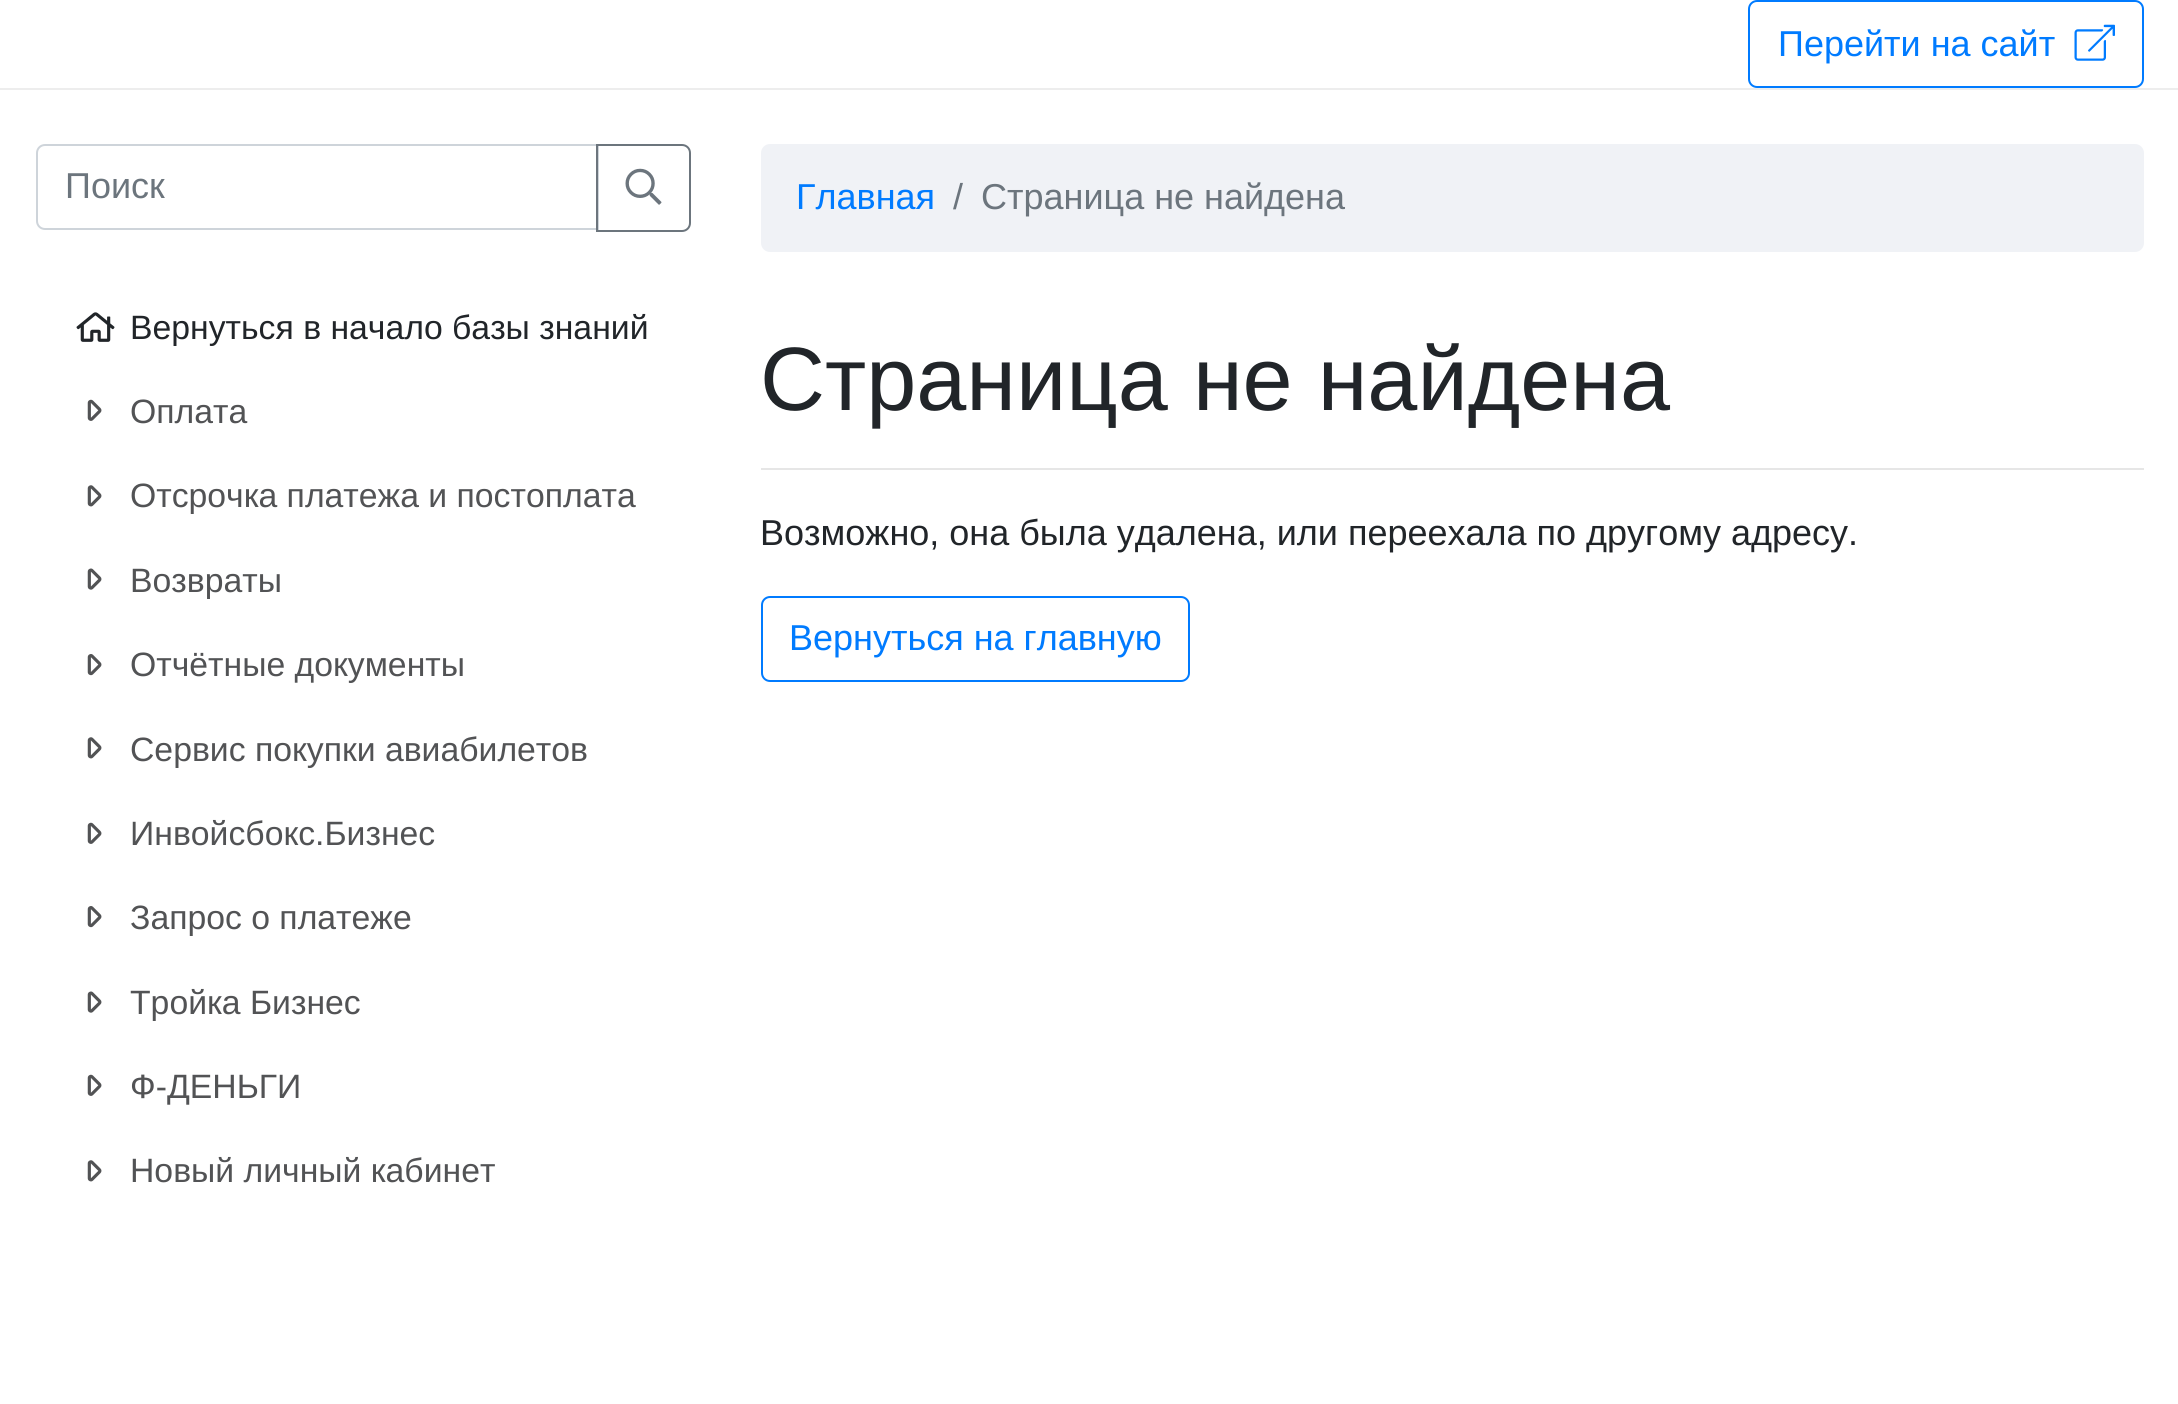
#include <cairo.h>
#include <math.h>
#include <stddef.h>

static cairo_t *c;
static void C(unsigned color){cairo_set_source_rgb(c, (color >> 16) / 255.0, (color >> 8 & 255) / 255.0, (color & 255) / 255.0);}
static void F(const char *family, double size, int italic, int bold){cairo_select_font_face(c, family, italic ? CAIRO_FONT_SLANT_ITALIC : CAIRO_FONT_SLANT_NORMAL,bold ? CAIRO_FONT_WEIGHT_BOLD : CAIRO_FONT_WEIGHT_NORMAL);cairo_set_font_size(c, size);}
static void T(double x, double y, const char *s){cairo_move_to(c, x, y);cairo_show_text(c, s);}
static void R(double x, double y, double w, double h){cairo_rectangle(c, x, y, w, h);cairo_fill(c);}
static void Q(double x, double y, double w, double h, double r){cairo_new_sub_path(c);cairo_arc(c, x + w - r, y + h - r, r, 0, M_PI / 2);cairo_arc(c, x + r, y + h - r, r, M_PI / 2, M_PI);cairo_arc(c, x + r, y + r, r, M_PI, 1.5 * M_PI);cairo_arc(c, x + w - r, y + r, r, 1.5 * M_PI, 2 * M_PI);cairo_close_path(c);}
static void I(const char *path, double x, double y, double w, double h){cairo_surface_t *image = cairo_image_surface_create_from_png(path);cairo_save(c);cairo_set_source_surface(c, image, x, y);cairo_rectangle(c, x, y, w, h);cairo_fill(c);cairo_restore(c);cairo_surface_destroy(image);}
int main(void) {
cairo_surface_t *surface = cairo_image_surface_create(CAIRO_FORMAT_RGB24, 2178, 1404);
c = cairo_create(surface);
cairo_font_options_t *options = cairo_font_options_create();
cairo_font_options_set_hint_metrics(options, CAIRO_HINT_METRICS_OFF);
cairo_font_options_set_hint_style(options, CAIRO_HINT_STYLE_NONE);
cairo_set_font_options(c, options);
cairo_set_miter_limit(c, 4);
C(0xffffff);
cairo_paint(c);
C(0xededed);
R(0,88,2178,2);
Q(1749,1,394,86,8);
C(0x007bff);
cairo_stroke(c);
F("Liberation Sans",36,0,0);
T(1778,56,"Перейти на сайт");
I("1.png",2074,24,41,37);
cairo_new_path(c);
cairo_move_to(c,45,145);
cairo_line_to(c,598,145);
cairo_line_to(c,598,229);
cairo_line_to(c,45,229);
cairo_curve_to(c,40.5,229,37,225.5,37,221);
cairo_line_to(c,37,153);
cairo_curve_to(c,37,148.5,40.5,145,45,145);
cairo_close_path(c);
C(0xced4da);
cairo_stroke(c);
C(0x6c757d);
T(65,198,"Поиск");
cairo_new_path(c);
cairo_move_to(c,597,145);
cairo_line_to(c,682,145);
cairo_curve_to(c,686.5,145,690,148.5,690,153);
cairo_line_to(c,690,223);
cairo_curve_to(c,690,227.5,686.5,231,682,231);
cairo_line_to(c,597,231);
cairo_close_path(c);
cairo_stroke(c);
I("2.png",625,168,37,37);
I("3.png",76,312,39,30);
F("Liberation Sans",33.75,0,0);
C(0x212529);
T(130,339,"Вернуться в начало базы знаний");
I("4.png",87,399,15,22);
C(0x525355);
T(130,423,"Оплата");
I("5.png",87,485,15,22);
T(130,507,"Отсрочка платежа и постоплата");
I("6.png",87,568,15,22);
T(130,592,"Возвраты");
I("7.png",87,654,15,22);
T(130,676,"Отчётные документы");
I("5.png",87,737,15,22);
T(130,761,"Сервис покупки авиабилетов");
I("4.png",87,822,15,22);
T(130,845,"Инвойсбокс.Бизнес");
I("7.png",87,906,15,22);
T(130,929,"Запрос о платеже");
I("6.png",87,991,15,22);
T(130,1014,"Тройка Бизнес");
I("4.png",87,1074,15,22);
T(130,1098,"Ф-ДЕНЬГИ");
I("5.png",87,1160,15,22);
T(130,1182,"Новый личный кабинет");
C(0xf0f2f6);
Q(761,144,1383,108,9);
cairo_fill(c);
F("Liberation Sans",36,0,0);
C(0x007bff);
T(796,209,"Главная");
C(0x6c757d);
T(953,209,"/");
T(981,209,"Страница не найдена");
F("Liberation Sans",90,0,0);
C(0x212529);
T(760,410,"Страница не найдена");
C(0xe6e6e6);
R(761,468,1383,2);
F("Liberation Sans",36,0,0);
C(0x212529);
T(760,545,"Возможно, она была удалена, или переехала по другому адресу.");
Q(762,597,427,84,8);
C(0x007bff);
cairo_stroke(c);
T(789,650,"Вернуться на главную");
cairo_surface_write_to_png(surface, "o.png");
cairo_font_options_destroy(options);
cairo_destroy(c);
cairo_surface_destroy(surface);
return 0;
}
